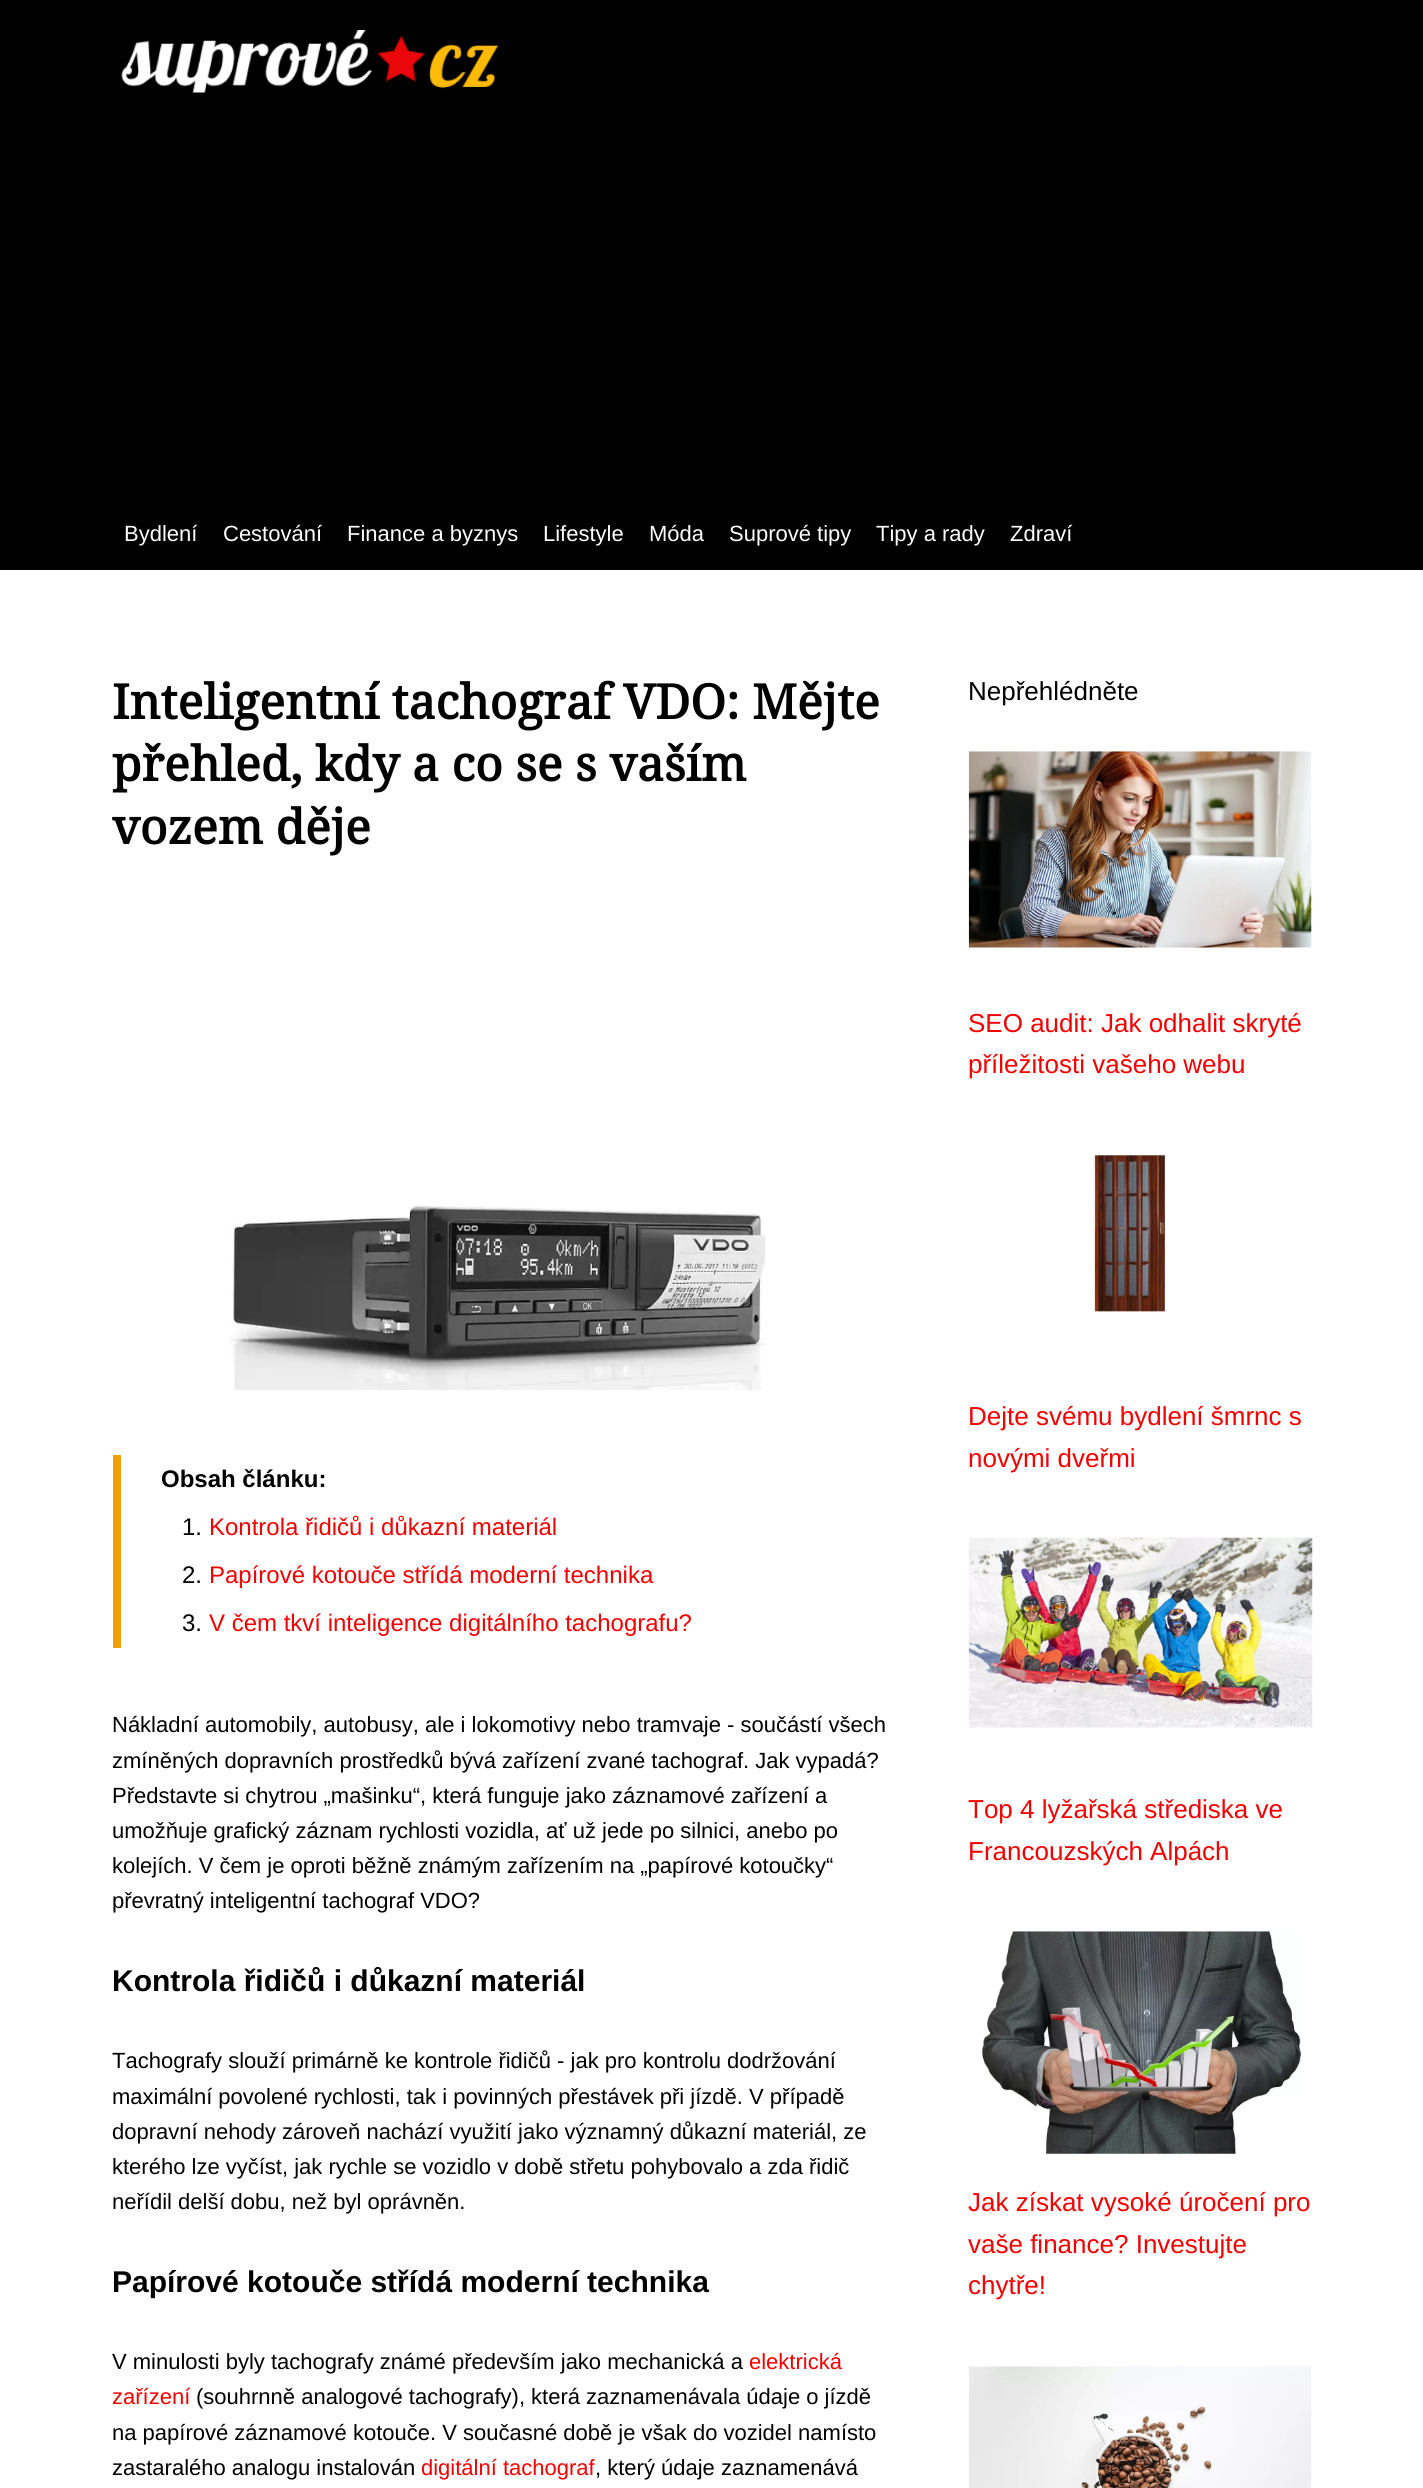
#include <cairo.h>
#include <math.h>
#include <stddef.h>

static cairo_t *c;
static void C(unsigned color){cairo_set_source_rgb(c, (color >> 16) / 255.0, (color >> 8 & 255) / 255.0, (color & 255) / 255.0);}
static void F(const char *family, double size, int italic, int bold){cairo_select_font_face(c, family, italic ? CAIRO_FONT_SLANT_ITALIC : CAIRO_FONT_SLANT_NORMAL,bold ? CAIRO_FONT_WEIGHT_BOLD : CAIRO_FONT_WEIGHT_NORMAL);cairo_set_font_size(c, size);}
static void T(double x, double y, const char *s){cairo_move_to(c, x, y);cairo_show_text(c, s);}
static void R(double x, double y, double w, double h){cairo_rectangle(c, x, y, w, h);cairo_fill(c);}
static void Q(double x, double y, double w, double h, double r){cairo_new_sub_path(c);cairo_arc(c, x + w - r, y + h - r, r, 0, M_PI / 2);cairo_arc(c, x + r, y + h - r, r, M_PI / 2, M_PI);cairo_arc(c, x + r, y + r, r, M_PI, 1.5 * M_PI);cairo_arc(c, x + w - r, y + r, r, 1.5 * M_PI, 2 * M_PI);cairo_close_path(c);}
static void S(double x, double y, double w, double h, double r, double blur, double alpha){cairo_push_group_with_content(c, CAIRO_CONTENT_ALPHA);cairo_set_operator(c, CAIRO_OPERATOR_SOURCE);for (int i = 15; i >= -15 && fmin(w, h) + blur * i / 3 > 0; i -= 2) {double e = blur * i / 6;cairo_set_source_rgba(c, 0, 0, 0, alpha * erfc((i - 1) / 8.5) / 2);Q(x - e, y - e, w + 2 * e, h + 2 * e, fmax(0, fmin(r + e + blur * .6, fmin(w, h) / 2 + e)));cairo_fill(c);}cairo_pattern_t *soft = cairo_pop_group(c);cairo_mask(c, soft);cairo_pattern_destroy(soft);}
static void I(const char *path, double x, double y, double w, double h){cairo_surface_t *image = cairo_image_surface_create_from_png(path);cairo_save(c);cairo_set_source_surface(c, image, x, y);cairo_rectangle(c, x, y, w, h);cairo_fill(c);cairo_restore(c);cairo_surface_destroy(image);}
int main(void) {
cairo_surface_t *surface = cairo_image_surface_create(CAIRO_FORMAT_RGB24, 1423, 2488);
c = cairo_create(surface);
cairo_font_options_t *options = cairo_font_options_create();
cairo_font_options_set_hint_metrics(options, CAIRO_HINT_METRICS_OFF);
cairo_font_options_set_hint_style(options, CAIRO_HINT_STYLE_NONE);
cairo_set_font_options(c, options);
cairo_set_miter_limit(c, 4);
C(0xffffff);
cairo_paint(c);
C(0x000000);
R(0,123,1423,447);
C(0x000000);
S(0,1,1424,123,0,6,.15);
C(0x000000);
R(0,0,1423,123);
I("1.png",121,30,378,63);
F("Liberation Sans",22,0,0);
C(0xffffff);
T(124,541,"Bydlení");
T(223,541,"Cestování");
T(347,541,"Finance a byznys");
T(543,541,"Lifestyle");
T(649,541,"Móda");
T(729,541,"Suprové tipy");
T(876,541,"Tipy a rady");
T(1010,541,"Zdraví");
F("Noto Serif",48,0,1);
C(0x000000);
T(112,719,"Inteligentní tachograf VDO: Mějte");
T(112,781,"přehled, kdy a co se s vaším");
T(112,844,"vozem děje");
I("2.png",229,1205,538,185);
C(0xeea300);
R(113,1455,8,193);
F("Liberation Sans",24,0,1);
C(0x000000);
T(161,1487,"Obsah článku:");
F("Liberation Sans",24,0,0);
T(182,1535,"1.");
C(0xf40000);
T(209,1535,"Kontrola řidičů i důkazní materiál");
C(0x000000);
T(182,1583,"2.");
C(0xf40000);
T(209,1583,"Papírové kotouče střídá moderní technika");
C(0x000000);
T(182,1631,"3.");
C(0xf40000);
T(209,1631,"V čem tkví inteligence digitálního tachografu?");
F("Liberation Sans",22,0,0);
C(0x000000);
T(112,1732,"Nákladní automobily, autobusy, ale i lokomotivy nebo tramvaje - součástí všech");
T(112,1768,"zmíněných dopravních prostředků bývá zařízení zvané tachograf. Jak vypadá?");
T(112,1803,"Představte si chytrou „mašinku“, která funguje jako záznamové zařízení a");
T(112,1838,"umožňuje grafický záznam rychlosti vozidla, ať už jede po silnici, anebo po");
T(112,1873,"kolejích. V čem je oproti běžně známým zařízením na „papírové kotoučky“");
T(112,1908,"převratný inteligentní tachograf VDO?");
F("Liberation Sans",30,0,1);
T(112,1991,"Kontrola řidičů i důkazní materiál");
F("Liberation Sans",22,0,0);
T(112,2068,"Tachografy slouží primárně ke kontrole řidičů - jak pro kontrolu dodržování");
T(112,2104,"maximální povolené rychlosti, tak i povinných přestávek při jízdě. V případě");
T(112,2139,"dopravní nehody zároveň nachází využití jako významný důkazní materiál, ze");
T(112,2174,"kterého lze vyčíst, jak rychle se vozidlo v době střetu pohybovalo a zda řidič");
T(112,2209,"neřídil delší dobu, než byl oprávněn.");
F("Liberation Sans",30,0,1);
T(112,2292,"Papírové kotouče střídá moderní technika");
F("Liberation Sans",22,0,0);
T(112,2369,"V minulosti byly tachografy známé především jako mechanická a");
C(0xf40000);
T(749,2369,"elektrická");
T(112,2404,"zařízení");
C(0x000000);
T(196,2404,"(souhrnně analogové tachografy), která zaznamenávala údaje o jízdě");
T(112,2440,"na papírové záznamové kotouče. V současné době je však do vozidel namísto");
T(112,2475,"zastaralého analogu instalován");
C(0xf40000);
T(421,2475,"digitální tachograf");
C(0x000000);
T(595,2475,", který údaje zaznamenává");
F("Liberation Sans",26,0,0);
T(968,700,"Nepřehlédněte");
I("3.png",968,751,344,197);
C(0xf40000);
T(968,1032,"SEO audit: Jak odhalit skryté");
T(968,1073,"příležitosti vašeho webu");
I("4.png",1093,1153,73,160);
T(968,1425,"Dejte svému bydlení šmrnc s");
T(968,1467,"novými dveřmi");
I("5.png",968,1537,345,191);
T(968,1818,"Top 4 lyžařská střediska ve");
T(968,1860,"Francouzských Alpách");
I("6.png",981,1931,321,223);
T(968,2211,"Jak získat vysoké úročení pro");
T(968,2253,"vaše finance? Investujte");
T(968,2294,"chytře!");
I("7.png",969,2366,343,122);
cairo_surface_write_to_png(surface, "o.png");
cairo_font_options_destroy(options);
cairo_destroy(c);
cairo_surface_destroy(surface);
return 0;
}
